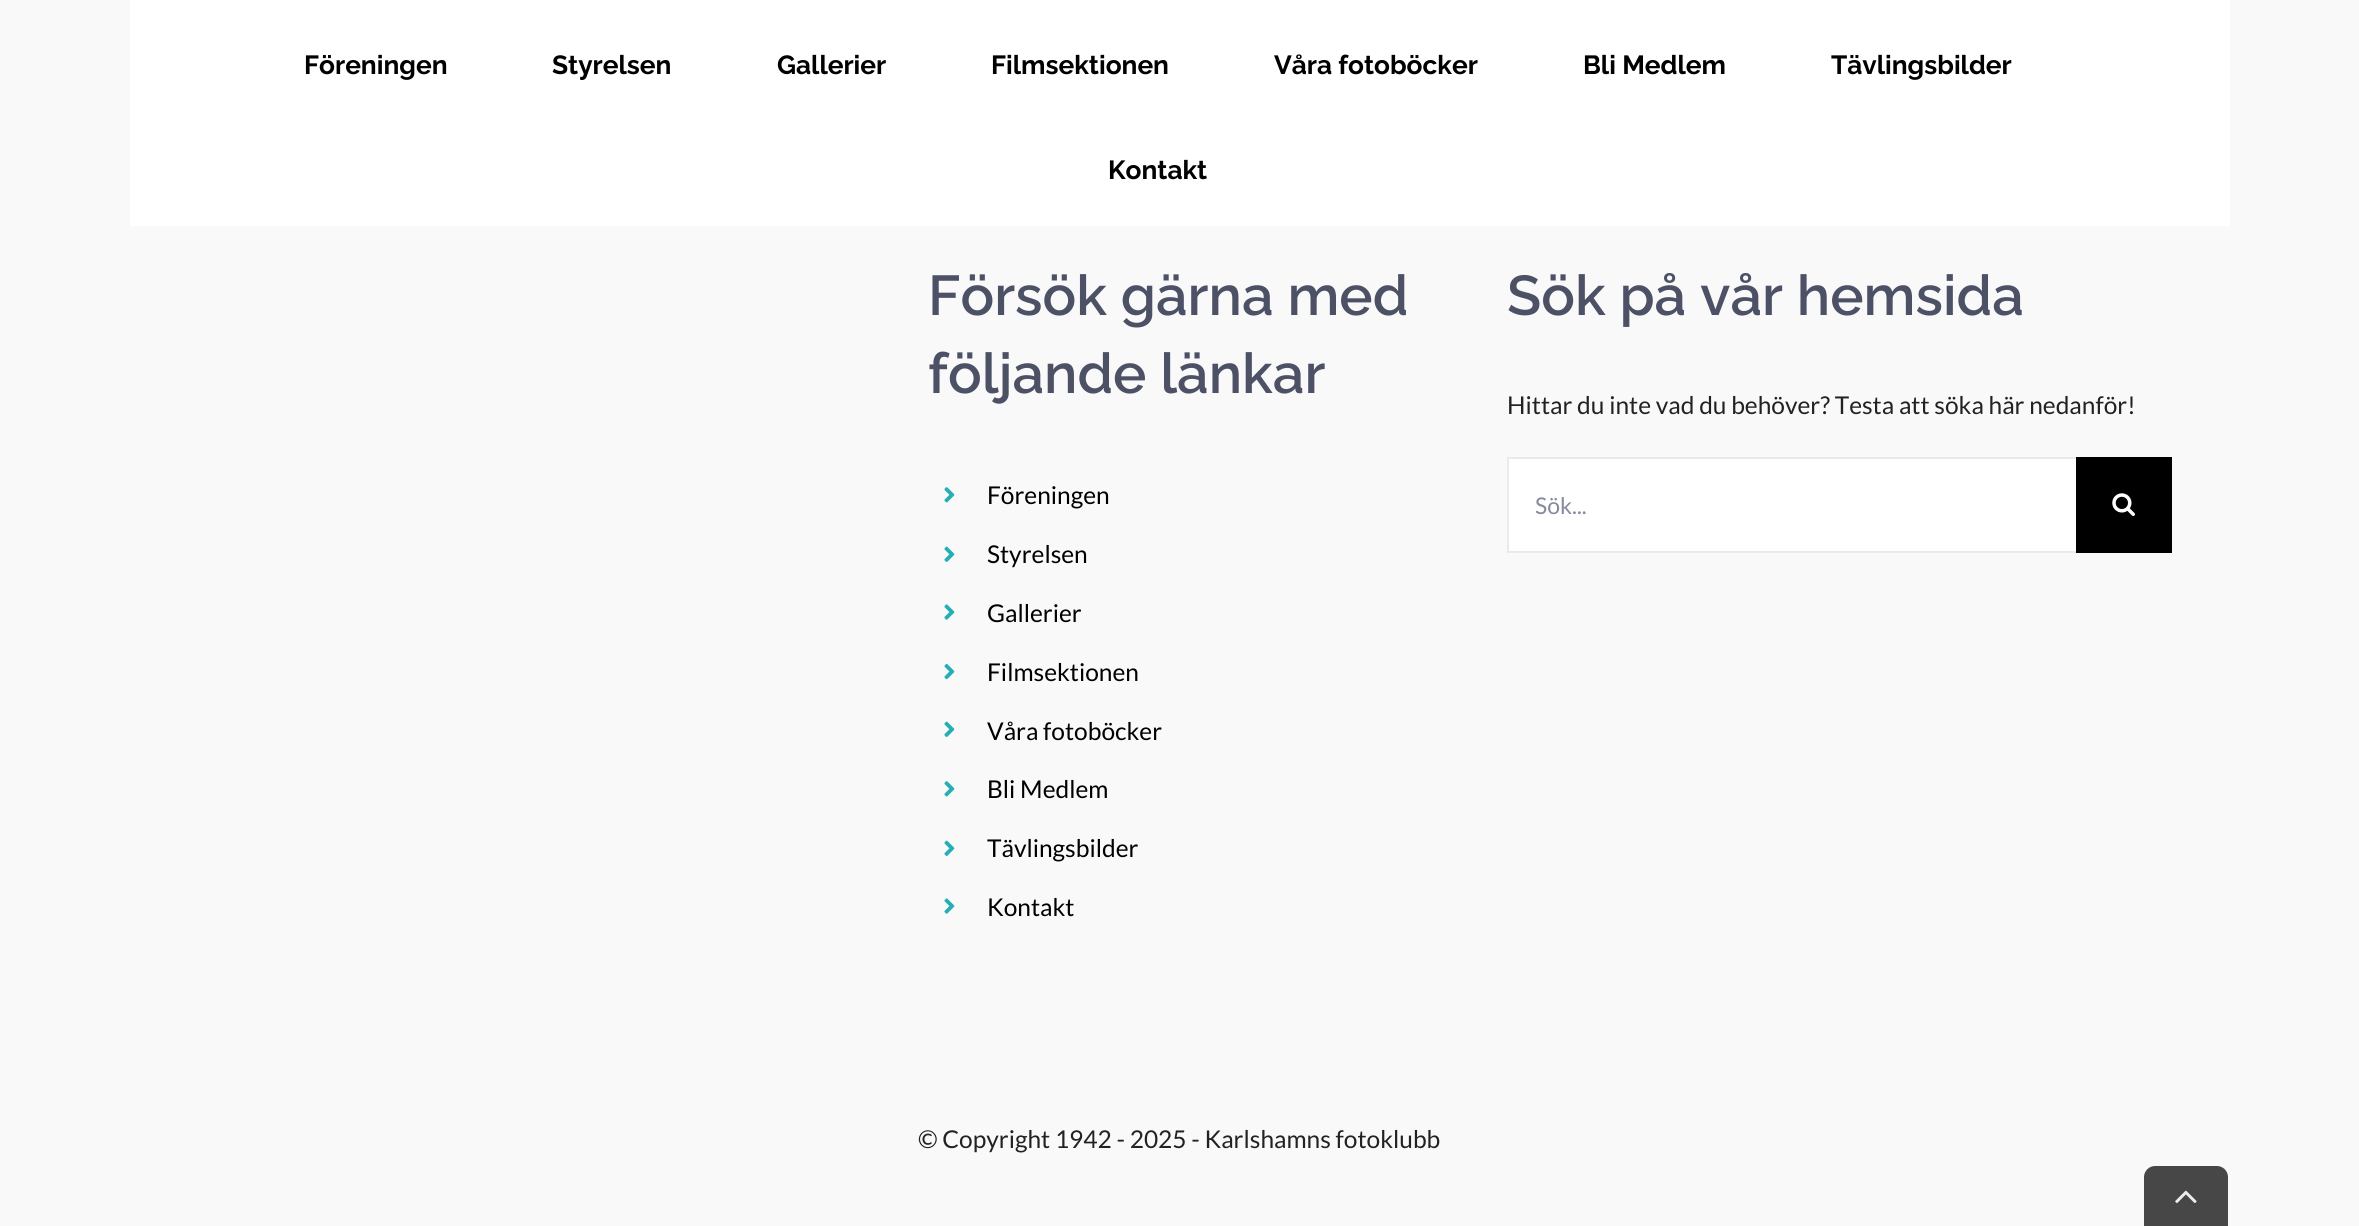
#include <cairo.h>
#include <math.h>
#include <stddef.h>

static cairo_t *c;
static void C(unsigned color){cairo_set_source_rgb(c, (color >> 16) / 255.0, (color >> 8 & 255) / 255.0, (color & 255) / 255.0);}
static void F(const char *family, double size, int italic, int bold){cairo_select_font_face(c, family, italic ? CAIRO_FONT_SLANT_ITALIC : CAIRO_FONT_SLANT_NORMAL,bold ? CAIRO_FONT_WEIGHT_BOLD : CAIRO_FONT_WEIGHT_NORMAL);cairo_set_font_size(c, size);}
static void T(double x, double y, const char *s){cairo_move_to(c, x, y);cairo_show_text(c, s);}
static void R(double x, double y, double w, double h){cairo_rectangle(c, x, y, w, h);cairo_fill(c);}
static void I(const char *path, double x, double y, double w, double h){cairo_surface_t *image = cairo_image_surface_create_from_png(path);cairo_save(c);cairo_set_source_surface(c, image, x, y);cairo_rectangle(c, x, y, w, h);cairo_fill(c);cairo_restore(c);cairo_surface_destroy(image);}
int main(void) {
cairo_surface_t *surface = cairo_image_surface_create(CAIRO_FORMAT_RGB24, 2359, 1226);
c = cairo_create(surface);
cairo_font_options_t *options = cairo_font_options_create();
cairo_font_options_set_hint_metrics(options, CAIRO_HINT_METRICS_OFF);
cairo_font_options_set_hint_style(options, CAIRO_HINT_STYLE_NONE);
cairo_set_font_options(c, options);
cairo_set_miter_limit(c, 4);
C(0xf9f9f9);
cairo_paint(c);
C(0xffffff);
R(130,0,2100,226);
F("Raleway",26.25,0,1);
C(0x000000);
T(304,74,"Föreningen");
T(552,74,"Styrelsen");
T(777,74,"Gallerier");
T(991,74,"Filmsektionen");
T(1274,74,"Våra fotoböcker");
T(1583,74,"Bli Medlem");
T(1831,74,"Tävlingsbilder");
T(1108,179,"Kontakt");
F("Raleway SemiBold",56,0,0);
C(0x4c5166);
T(928,315,"Försök gärna med");
T(928,393,"följande länkar");
I("1.png",944,487,11,16);
F("Lato",24.5,0,0);
C(0x000000);
T(987,504,"Föreningen");
I("2.png",944,546,11,16);
T(987,563,"Styrelsen");
I("3.png",944,604,11,16);
T(987,622,"Gallerier");
I("4.png",944,663,11,17);
T(987,681,"Filmsektionen");
I("2.png",944,721,11,16);
T(987,740,"Våra fotoböcker");
I("1.png",944,781,11,16);
T(987,798,"Bli Medlem");
I("2.png",944,840,11,16);
T(987,857,"Tävlingsbilder");
I("3.png",944,898,11,16);
T(987,916,"Kontakt");
F("Raleway SemiBold",56,0,0);
C(0x4c5166);
T(1507,315,"Sök på vår hemsida");
F("Lato",24.5,0,0);
C(0x222222);
T(1507,414,"Hittar du inte vad du behöver? Testa att söka här nedanför!");
C(0xffffff);
R(1509,459,567,92);
C(0xeaeaea);
R(1507,457,569,2);
R(1507,551,569,2);
R(1507,457,2,96);
F("Lato",23,0,0);
C(0x858a9f);
T(1535,514,"Sök...");
C(0x000000);
R(2076,457,96,96);
I("5.png",2112,493,23,23);
F("Lato",24.5,0,0);
C(0x222222);
T(918,1148,"© Copyright 1942 - 2025 - Karlshamns fotoklubb");
C(0x474747);
cairo_new_path(c);
cairo_move_to(c,2155,1166);
cairo_line_to(c,2217,1166);
cairo_curve_to(c,2223,1166,2228,1171,2228,1177);
cairo_line_to(c,2228,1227);
cairo_line_to(c,2144,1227);
cairo_line_to(c,2144,1177);
cairo_curve_to(c,2144,1171,2149,1166,2155,1166);
cairo_close_path(c);
cairo_fill(c);
I("6.png",2175,1190,22,14);
cairo_surface_write_to_png(surface, "o.png");
cairo_font_options_destroy(options);
cairo_destroy(c);
cairo_surface_destroy(surface);
return 0;
}
